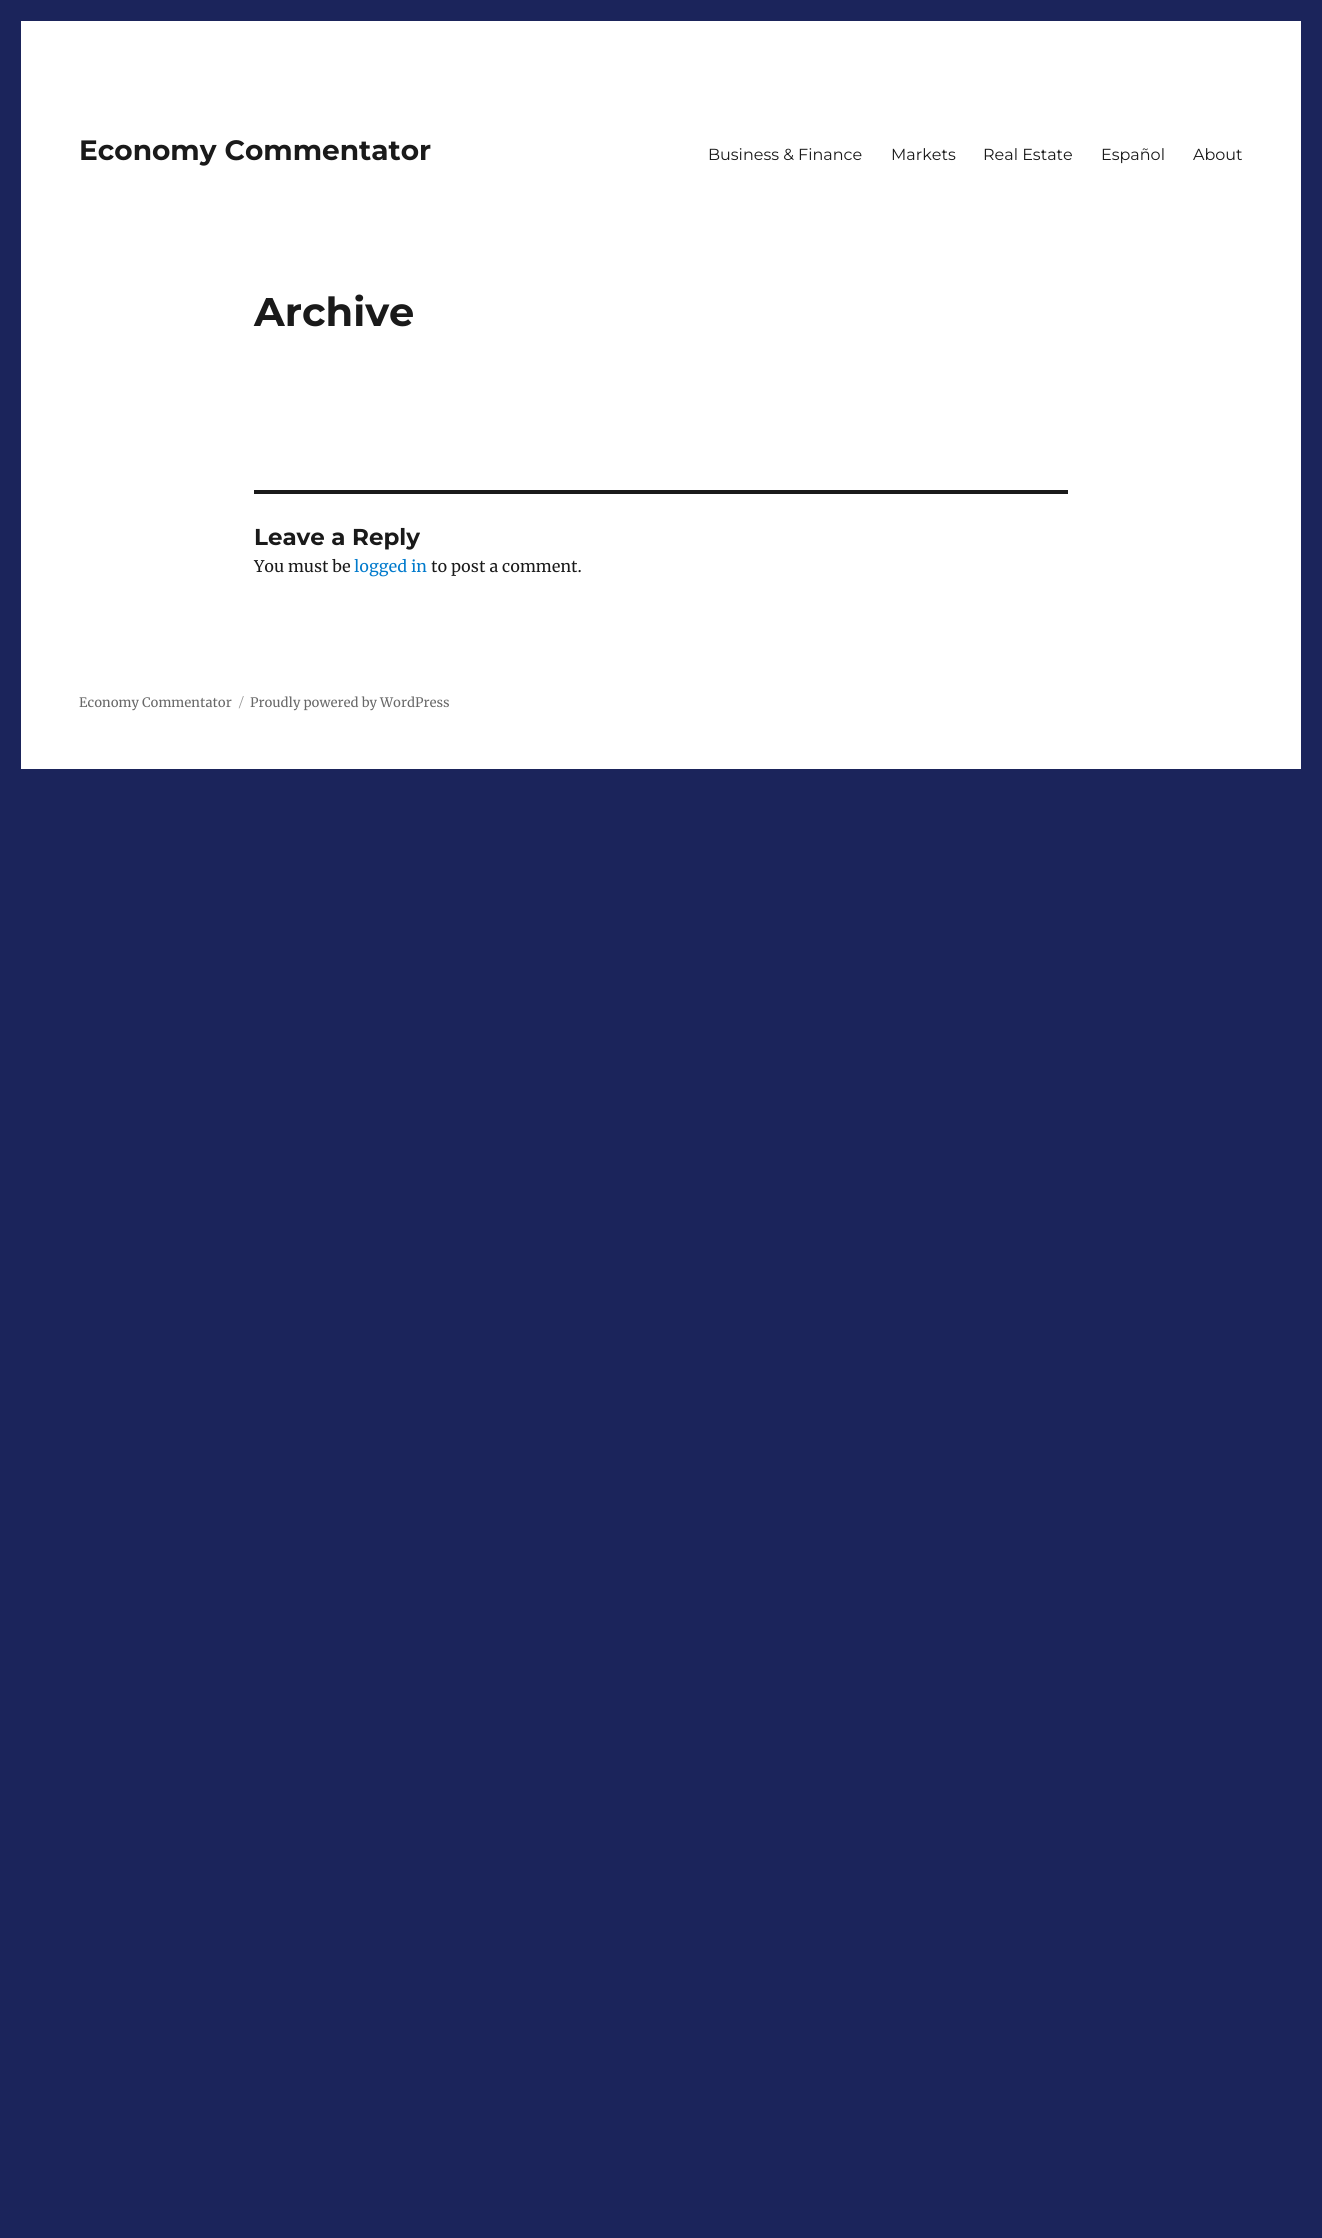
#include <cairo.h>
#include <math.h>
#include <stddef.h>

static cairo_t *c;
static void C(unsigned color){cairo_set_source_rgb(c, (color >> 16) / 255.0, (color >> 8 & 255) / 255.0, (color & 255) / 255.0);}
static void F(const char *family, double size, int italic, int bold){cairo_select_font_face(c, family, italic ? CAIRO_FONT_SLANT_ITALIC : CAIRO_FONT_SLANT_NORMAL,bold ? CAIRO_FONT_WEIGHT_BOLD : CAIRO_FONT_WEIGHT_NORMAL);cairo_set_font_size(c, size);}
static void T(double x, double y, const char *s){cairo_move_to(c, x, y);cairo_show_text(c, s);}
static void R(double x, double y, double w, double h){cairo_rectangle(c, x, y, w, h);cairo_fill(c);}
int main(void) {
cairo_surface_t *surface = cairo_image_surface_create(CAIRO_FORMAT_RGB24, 1322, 2238);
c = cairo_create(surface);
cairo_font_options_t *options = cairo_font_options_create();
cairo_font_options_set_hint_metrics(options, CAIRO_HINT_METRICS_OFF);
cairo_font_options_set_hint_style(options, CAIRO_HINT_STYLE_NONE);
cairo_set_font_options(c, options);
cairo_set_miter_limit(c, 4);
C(0x1b245b);
cairo_paint(c);
C(0xffffff);
R(21,21,1280,748);
F("Montserrat Thin",28,0,0);
C(0x1a1a1a);
T(79,160,"Economy Commentator");
F("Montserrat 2 Thin",16,0,0);
T(708,160,"Business & Finance");
T(891,160,"Markets");
T(983,160,"Real Estate");
T(1101,160,"Español");
T(1193,160,"About");
F("Montserrat Thin",40,0,0);
T(254,326,"Archive");
R(254,490,814,4);
F("Montserrat Thin",23,0,0);
T(254,545,"Leave a Reply");
F("Merriweather",16,0,0);
T(254,572,"You must be");
C(0x007acc);
T(354,572,"logged in");
C(0x1a1a1a);
T(431,572,"to post a comment.");
F("Merriweather",13,0,0);
C(0x686868);
T(79,707,"Economy Commentator");
F("Montserrat 2 Thin",13,0,0);
C(0x959595);
T(239,707,"/");
F("Merriweather",13,0,0);
C(0x686868);
T(250,707,"Proudly powered by WordPress");
cairo_surface_write_to_png(surface, "o.png");
cairo_font_options_destroy(options);
cairo_destroy(c);
cairo_surface_destroy(surface);
return 0;
}
